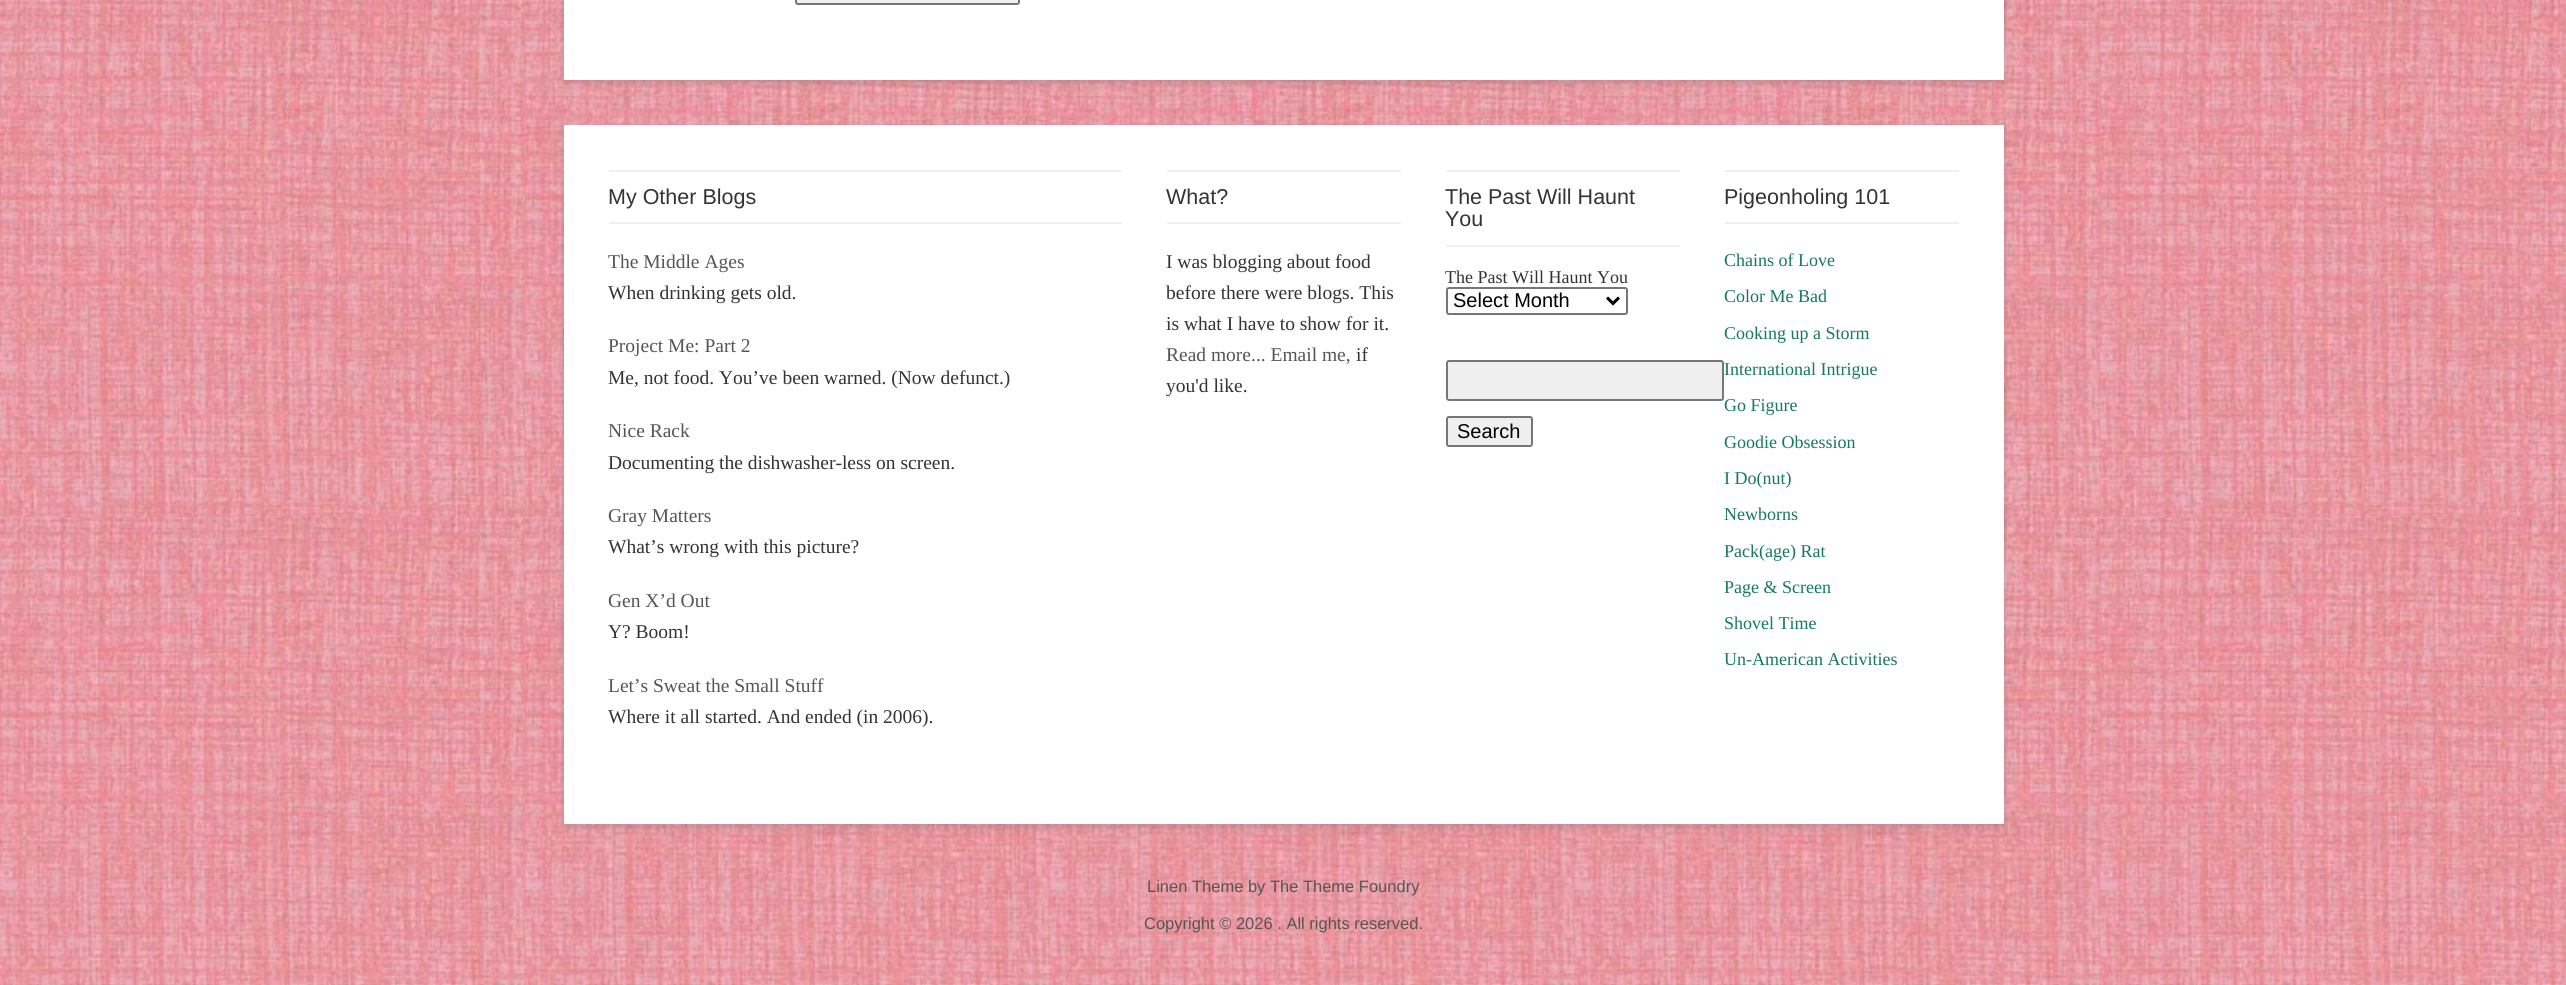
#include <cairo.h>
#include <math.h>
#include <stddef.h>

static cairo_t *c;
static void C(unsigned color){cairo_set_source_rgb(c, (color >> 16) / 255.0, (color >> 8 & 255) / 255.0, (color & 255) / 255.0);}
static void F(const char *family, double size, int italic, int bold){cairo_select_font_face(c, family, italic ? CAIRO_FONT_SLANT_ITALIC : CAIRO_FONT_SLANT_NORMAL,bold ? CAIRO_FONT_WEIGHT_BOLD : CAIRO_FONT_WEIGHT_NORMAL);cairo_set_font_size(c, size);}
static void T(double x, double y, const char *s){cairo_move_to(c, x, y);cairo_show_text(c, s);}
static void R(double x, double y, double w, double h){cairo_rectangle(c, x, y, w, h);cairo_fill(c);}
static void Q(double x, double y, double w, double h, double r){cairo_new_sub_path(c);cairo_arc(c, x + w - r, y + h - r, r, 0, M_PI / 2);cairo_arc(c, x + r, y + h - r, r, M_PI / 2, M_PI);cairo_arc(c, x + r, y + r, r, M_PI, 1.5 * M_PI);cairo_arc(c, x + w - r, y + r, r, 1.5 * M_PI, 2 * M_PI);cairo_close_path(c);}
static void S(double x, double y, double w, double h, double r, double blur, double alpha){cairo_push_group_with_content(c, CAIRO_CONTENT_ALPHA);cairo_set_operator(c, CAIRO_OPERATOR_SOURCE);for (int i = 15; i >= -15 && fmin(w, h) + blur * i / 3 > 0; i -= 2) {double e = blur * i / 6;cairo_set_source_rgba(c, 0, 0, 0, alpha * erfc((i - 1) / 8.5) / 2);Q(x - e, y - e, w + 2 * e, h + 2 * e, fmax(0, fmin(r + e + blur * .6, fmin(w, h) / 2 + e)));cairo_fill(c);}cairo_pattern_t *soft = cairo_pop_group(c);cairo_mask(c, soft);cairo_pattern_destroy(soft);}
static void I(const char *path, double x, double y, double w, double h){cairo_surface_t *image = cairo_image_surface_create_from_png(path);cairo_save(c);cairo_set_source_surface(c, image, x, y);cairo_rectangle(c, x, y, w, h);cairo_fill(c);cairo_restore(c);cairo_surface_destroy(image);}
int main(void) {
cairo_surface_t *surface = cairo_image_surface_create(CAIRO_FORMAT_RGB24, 2566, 985);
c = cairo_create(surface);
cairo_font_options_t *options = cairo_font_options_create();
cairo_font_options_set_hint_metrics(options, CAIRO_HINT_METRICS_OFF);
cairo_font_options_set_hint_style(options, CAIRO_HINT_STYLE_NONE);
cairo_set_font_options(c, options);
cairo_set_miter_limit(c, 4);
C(0xffffff);
cairo_paint(c);
I("1.png",0,0,2566,985);
C(0x646464);
S(564,-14,1440,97,0,4.5,.3);
C(0xffffff);
R(564,0,1440,80);
C(0xefefef);
Q(796,-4,223,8,2);
cairo_fill_preserve(c);
C(0x767676);
cairo_stroke(c);
C(0x646464);
S(564,128,1440,699,0,4.5,.3);
C(0xffffff);
R(564,125,1440,699);
C(0xefefef);
R(609,170,513,2);
R(609,222,513,2);
F("Liberation Sans",21.5,0,0);
C(0x333333);
T(608,204,"My Other Blogs");
F("Liberation Serif",19.5,0,0);
C(0x555555);
T(608,268,"The Middle Ages");
C(0x333333);
T(608,299,"When drinking gets old.");
C(0x555555);
T(608,352,"Project Me: Part 2");
C(0x333333);
T(608,384,"Me, not food. You’ve been warned. (Now defunct.)");
C(0x555555);
T(608,437,"Nice Rack");
C(0x333333);
T(608,469,"Documenting the dishwasher-less on screen.");
C(0x555555);
T(608,522,"Gray Matters");
C(0x333333);
T(608,553,"What’s wrong with this picture?");
C(0x555555);
T(608,607,"Gen X’d Out");
C(0x333333);
T(608,638,"Y? Boom!");
C(0x555555);
T(608,692,"Let’s Sweat the Small Stuff");
C(0x333333);
T(608,723,"Where it all started. And ended (in 2006).");
C(0xefefef);
R(1167,170,234,2);
R(1167,222,234,2);
F("Liberation Sans",21.5,0,0);
C(0x333333);
T(1166,204,"What?");
F("Liberation Serif",19.5,0,0);
T(1166,268,"I was blogging about food");
T(1166,299,"before there were blogs. This");
T(1166,330,"is what I have to show for it.");
C(0x555555);
T(1166,361,"Read more... Email me,");
C(0x333333);
T(1356,361,"if");
T(1166,392,"you'd like.");
C(0xefefef);
R(1446,170,234,2);
R(1446,245,234,2);
F("Liberation Sans",21.5,0,0);
C(0x333333);
T(1445,204,"The Past Will Haunt");
T(1445,226,"You");
F("Liberation Serif",18,0,0);
T(1445,283,"The Past Will Haunt You");
Q(1447,288,180,26,2);
C(0x767676);
cairo_stroke(c);
cairo_new_path(c);
cairo_move_to(c,1607,297.5);
cairo_line_to(c,1613,303.5);
cairo_line_to(c,1619,297.5);
C(0x000000);
cairo_set_line_width(c,3);
cairo_stroke(c);
F("Liberation Sans",20,0,0);
T(1453,307,"Select Month");
C(0xefefef);
Q(1447,361,276,39,2);
cairo_fill_preserve(c);
C(0x767676);
cairo_set_line_width(c,2);
cairo_stroke(c);
C(0xefefef);
Q(1447,417,85,29,2);
cairo_fill_preserve(c);
C(0x767676);
cairo_stroke(c);
C(0x000000);
T(1457,438,"Search");
C(0xefefef);
R(1725,170,234,2);
R(1725,222,234,2);
F("Liberation Sans",21.5,0,0);
C(0x333333);
T(1724,204,"Pigeonholing 101");
F("Liberation Serif",18,0,0);
C(0x147a5d);
T(1724,266,"Chains of Love");
T(1724,302,"Color Me Bad");
T(1724,339,"Cooking up a Storm");
T(1724,375,"International Intrigue");
T(1724,411,"Go Figure");
T(1724,448,"Goodie Obsession");
T(1724,484,"I Do(nut)");
T(1724,520,"Newborns");
T(1724,557,"Pack(age) Rat");
T(1724,593,"Page & Screen");
T(1724,629,"Shovel Time");
T(1724,665,"Un-American Activities");
F("Liberation Sans",16.5,0,0);
C(0x555555);
T(1147,892,"Linen Theme by The Theme Foundry");
T(1144,929,"Copyright © 2026 . All rights reserved.");
cairo_surface_write_to_png(surface, "o.png");
cairo_font_options_destroy(options);
cairo_destroy(c);
cairo_surface_destroy(surface);
return 0;
}
